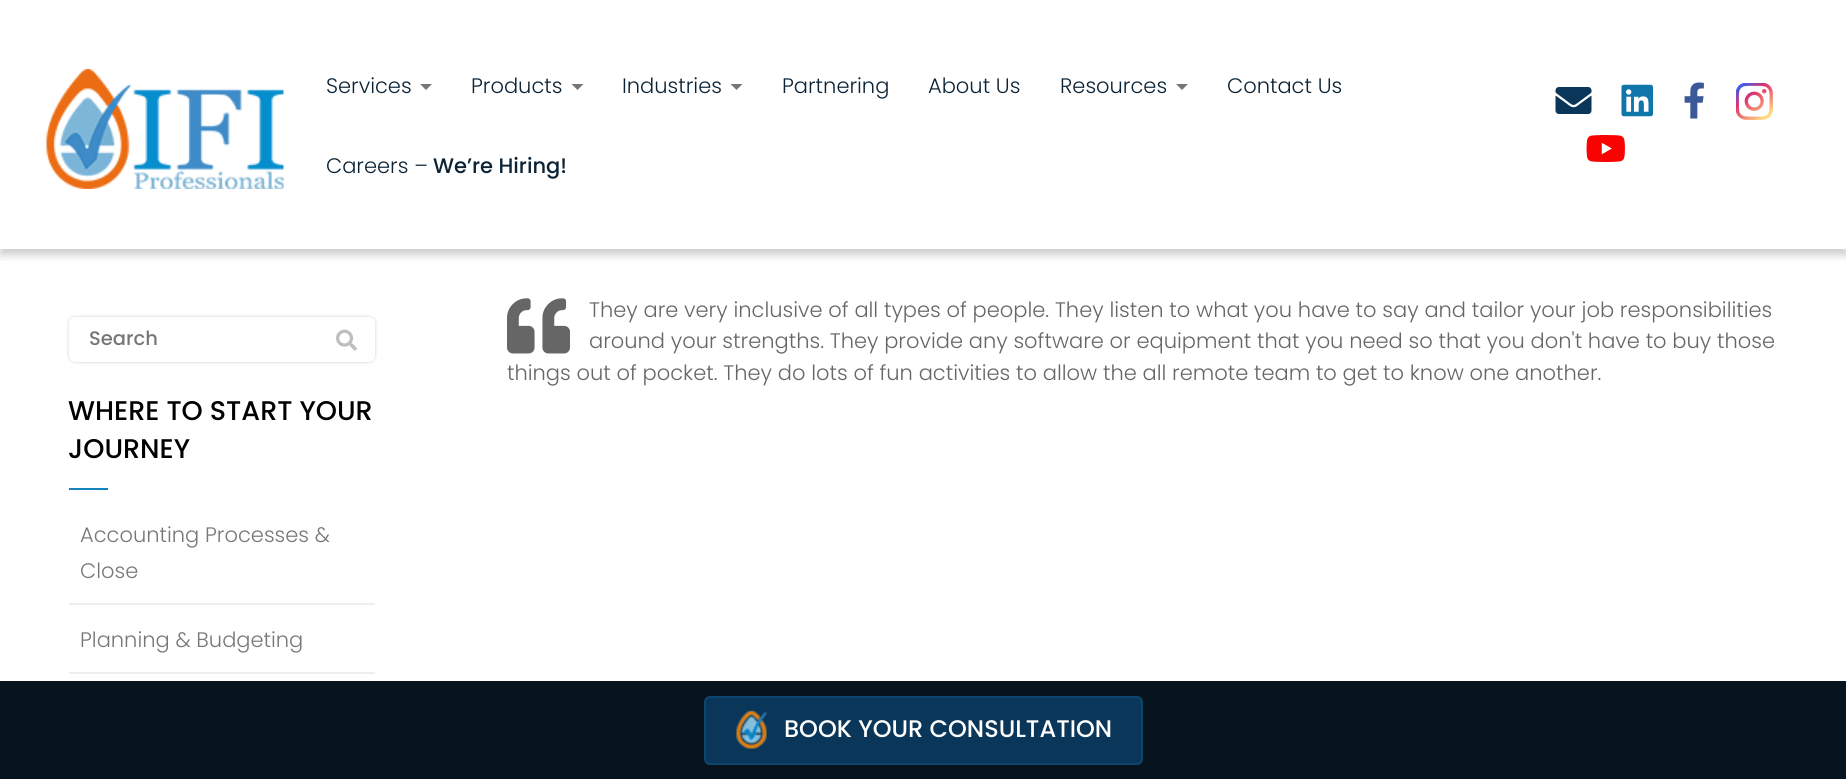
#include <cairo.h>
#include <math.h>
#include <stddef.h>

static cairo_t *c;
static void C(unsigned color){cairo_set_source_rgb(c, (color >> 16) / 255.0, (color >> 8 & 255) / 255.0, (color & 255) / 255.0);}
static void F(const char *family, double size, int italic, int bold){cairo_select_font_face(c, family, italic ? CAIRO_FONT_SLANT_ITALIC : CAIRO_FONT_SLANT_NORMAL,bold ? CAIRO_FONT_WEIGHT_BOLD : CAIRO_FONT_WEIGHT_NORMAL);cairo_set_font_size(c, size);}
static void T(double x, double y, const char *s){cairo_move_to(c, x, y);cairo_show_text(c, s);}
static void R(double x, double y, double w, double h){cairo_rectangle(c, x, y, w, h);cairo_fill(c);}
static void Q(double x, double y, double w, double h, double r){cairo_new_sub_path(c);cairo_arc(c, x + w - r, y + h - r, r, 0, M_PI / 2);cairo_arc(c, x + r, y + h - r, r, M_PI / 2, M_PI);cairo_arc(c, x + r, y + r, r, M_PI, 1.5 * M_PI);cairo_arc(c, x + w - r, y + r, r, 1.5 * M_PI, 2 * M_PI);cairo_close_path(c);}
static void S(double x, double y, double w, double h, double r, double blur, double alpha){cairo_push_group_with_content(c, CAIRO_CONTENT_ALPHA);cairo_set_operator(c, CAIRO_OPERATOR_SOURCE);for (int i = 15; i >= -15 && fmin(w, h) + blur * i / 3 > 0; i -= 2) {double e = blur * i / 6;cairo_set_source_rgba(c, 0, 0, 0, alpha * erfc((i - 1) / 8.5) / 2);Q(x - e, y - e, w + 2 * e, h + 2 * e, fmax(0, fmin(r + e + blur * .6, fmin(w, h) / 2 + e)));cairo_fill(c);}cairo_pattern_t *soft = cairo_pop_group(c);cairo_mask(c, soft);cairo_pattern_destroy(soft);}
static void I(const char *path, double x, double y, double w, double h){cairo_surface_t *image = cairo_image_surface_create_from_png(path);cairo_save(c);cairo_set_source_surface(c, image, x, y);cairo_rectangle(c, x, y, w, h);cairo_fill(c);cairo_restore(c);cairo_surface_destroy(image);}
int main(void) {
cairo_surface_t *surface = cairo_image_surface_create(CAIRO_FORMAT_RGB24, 1846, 779);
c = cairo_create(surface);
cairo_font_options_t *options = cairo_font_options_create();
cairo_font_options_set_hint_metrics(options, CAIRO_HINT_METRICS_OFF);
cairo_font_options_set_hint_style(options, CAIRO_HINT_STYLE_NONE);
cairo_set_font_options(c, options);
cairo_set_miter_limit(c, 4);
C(0xffffff);
cairo_paint(c);
cairo_save(c);
cairo_rectangle(c,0,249,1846,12);
cairo_clip(c);
C(0x000000);
S(0,6,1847,249,0,4.5,.2);
cairo_restore(c);
I("1.png",46,69,238,120);
F("Poppins Light",21,0,0);
C(0x0c2335);
T(326,93,"Services");
C(0x777777);
cairo_new_path(c);
cairo_move_to(c,420,84);
cairo_line_to(c,432,84);
cairo_line_to(c,426,90);
cairo_close_path(c);
cairo_fill(c);
C(0x0c2335);
T(471,93,"Products");
C(0x777777);
cairo_new_path(c);
cairo_move_to(c,571.5,84);
cairo_line_to(c,583.5,84);
cairo_line_to(c,577.5,90);
cairo_close_path(c);
cairo_fill(c);
C(0x0c2335);
T(622,93,"Industries");
C(0x777777);
cairo_new_path(c);
cairo_move_to(c,730.5,84);
cairo_line_to(c,742.5,84);
cairo_line_to(c,736.5,90);
cairo_close_path(c);
cairo_fill(c);
C(0x0c2335);
T(782,93,"Partnering");
T(928,93,"About Us");
T(1060,93,"Resources");
C(0x777777);
cairo_new_path(c);
cairo_move_to(c,1176,84);
cairo_line_to(c,1188,84);
cairo_line_to(c,1182,90);
cairo_close_path(c);
cairo_fill(c);
C(0x0c2335);
T(1227,93,"Contact Us");
T(326,173,"Careers –");
F("Poppins Medium",21,0,0);
T(433,173,"We’re Hiring!");
I("2.png",1555,87,37,27);
I("3.png",1621,84,32,33);
I("4.png",1684,82,20,37);
I("5.png",1736,83,37,37);
I("6.png",1586,135,39,27);
C(0xcccccc);
S(69,317,306,45,6,1.5,1);
C(0xffffff);
Q(69,317,306,45,6);
cairo_fill(c);
F("Poppins Medium",19.5,0,0);
C(0x777777);
T(89,345,"Search");
I("7.png",336,329,21,22);
F("Poppins Medium",27,0,0);
C(0x000000);
T(68,420,"WHERE TO START YOUR");
T(68,458,"JOURNEY");
C(0x1684bd);
R(69,488,39,2);
C(0xeeeeee);
R(69,603,306,2);
F("Poppins Light",21,0,0);
C(0x777777);
T(80,542,"Accounting Processes &");
T(80,578,"Close");
C(0xeeeeee);
R(69,672,306,2);
C(0x777777);
T(80,647,"Planning & Budgeting");
I("8.png",507,298,63,56);
C(0x666666);
T(589,317,"They are very inclusive of all types of people. They listen to what you have to say and tailor your job responsibilities");
T(589,348,"around your strengths. They provide any software or equipment that you need so that you don't have to buy those");
T(507,380,"things out of pocket. They do lots of fun activities to allow the all remote team to get to know one another.");
C(0x07141e);
R(0,681,1846,98);
C(0x0a3759);
Q(705,697,437,67,5);
cairo_fill_preserve(c);
C(0x0c456f);
cairo_stroke(c);
I("9.png",736,710,31,39);
F("Poppins Medium",24,0,0);
C(0xffffff);
T(784,737,"BOOK YOUR CONSULTATION");
cairo_surface_write_to_png(surface, "o.png");
cairo_font_options_destroy(options);
cairo_destroy(c);
cairo_surface_destroy(surface);
return 0;
}
